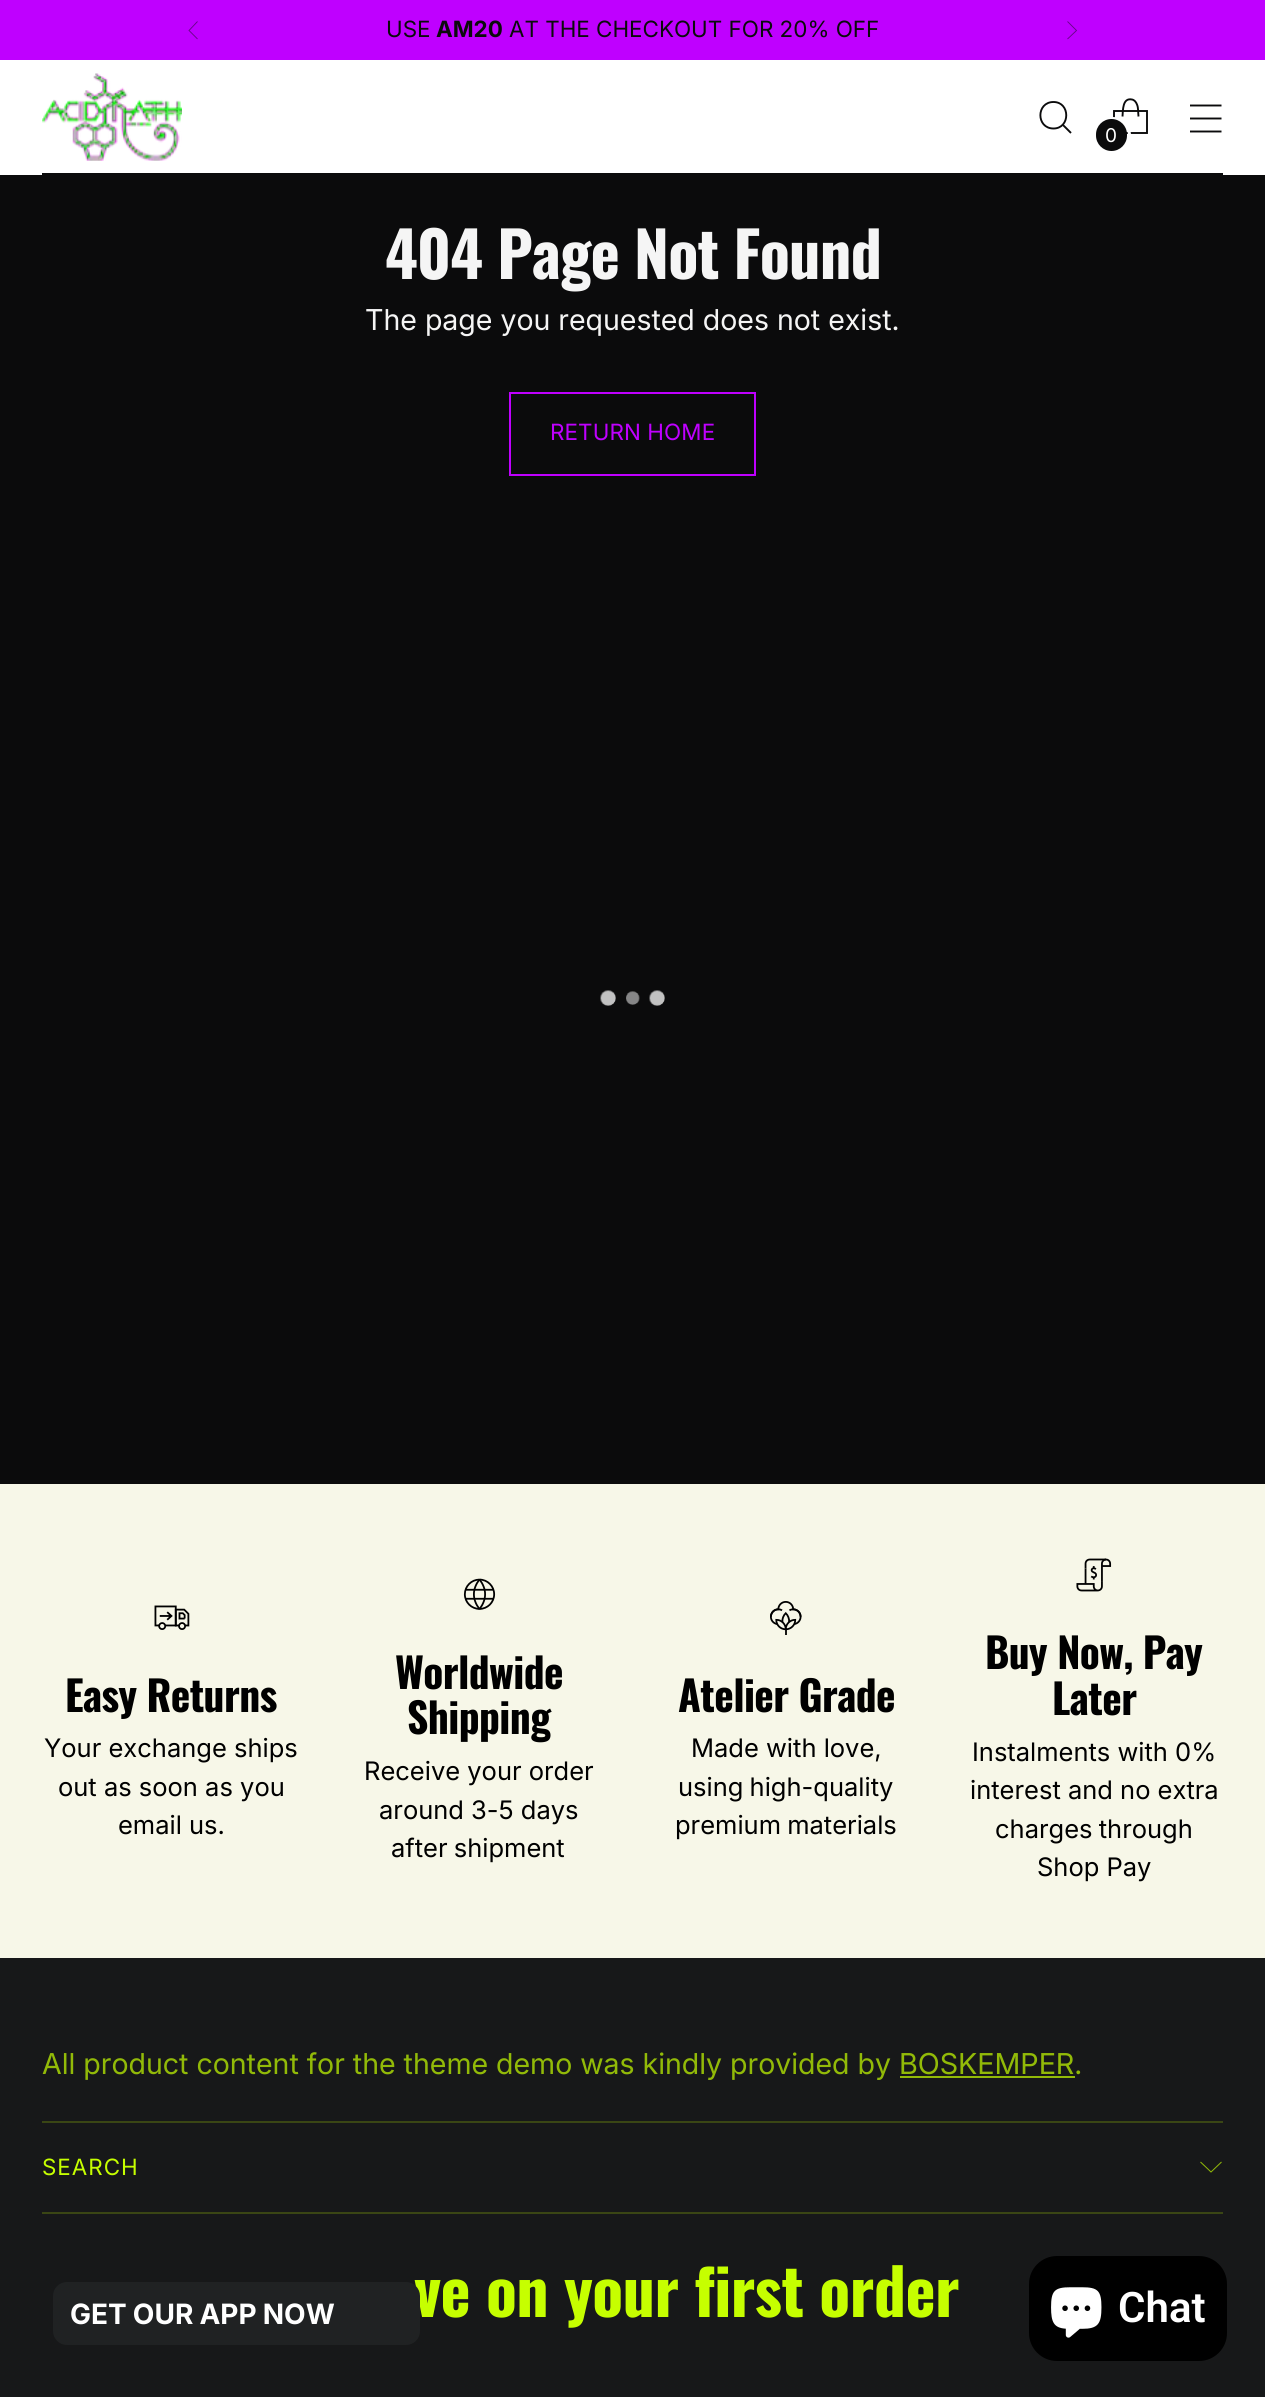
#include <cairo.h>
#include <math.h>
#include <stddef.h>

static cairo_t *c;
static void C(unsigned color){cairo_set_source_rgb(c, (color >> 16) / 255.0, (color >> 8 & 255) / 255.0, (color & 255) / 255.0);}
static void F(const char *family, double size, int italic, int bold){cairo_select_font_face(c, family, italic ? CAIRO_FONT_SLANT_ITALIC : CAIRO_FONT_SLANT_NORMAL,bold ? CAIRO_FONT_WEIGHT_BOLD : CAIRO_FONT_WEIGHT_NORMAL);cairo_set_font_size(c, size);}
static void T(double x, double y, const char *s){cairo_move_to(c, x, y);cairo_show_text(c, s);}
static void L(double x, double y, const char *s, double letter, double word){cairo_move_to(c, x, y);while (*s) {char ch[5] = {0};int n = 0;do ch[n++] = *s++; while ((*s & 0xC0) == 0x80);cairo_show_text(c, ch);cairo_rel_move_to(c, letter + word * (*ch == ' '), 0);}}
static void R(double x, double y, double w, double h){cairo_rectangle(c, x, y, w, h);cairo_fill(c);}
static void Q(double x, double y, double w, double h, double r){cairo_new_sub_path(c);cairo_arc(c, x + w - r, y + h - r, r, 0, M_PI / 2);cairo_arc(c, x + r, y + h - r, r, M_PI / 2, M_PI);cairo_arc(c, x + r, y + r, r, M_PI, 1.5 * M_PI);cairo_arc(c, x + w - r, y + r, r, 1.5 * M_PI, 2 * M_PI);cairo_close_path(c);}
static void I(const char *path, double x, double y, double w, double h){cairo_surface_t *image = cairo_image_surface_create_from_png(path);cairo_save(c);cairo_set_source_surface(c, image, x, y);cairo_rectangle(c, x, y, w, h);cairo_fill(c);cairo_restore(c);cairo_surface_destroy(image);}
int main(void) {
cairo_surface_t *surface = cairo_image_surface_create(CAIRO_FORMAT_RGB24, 1265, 2397);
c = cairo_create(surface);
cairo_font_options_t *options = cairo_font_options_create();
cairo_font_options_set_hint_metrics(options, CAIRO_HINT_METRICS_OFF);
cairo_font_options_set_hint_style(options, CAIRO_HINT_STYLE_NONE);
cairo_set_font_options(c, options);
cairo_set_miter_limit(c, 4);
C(0x0b0b0c);
cairo_paint(c);
C(0xbf00ff);
R(0,0,1265,60);
F("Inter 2",22.4,0,0);
C(0x0b0b0c);
T(386,37,"USE");
F("Inter",22.4,0,1);
T(436,37,"AM20");
F("Inter 2",22.4,0,0);
T(509,37,"AT THE CHECKOUT FOR 20% OFF");
cairo_new_path(c);
cairo_move_to(c,197.5,21.5);
cairo_line_to(c,189,30.5);
cairo_line_to(c,197.5,39);
C(0x650686);
cairo_set_line_width(c,.9);
cairo_stroke(c);
cairo_new_path(c);
cairo_move_to(c,1067.5,39);
cairo_line_to(c,1076.5,30.5);
cairo_line_to(c,1067.5,21.5);
cairo_stroke(c);
C(0xffffff);
R(0,60,1265,115);
C(0x0b0b0c);
R(42,173,1181,2);
I("1.png",42,73,140,88);
cairo_new_path(c);
cairo_move_to(c,1053.5,128.5);
cairo_curve_to(c,1070.5,128.5,1070.5,102,1053.5,102);
cairo_curve_to(c,1036,102,1036,128.5,1053.5,128.5);
cairo_close_path(c);
cairo_set_line_width(c,1.9);
cairo_set_line_cap(c,CAIRO_LINE_CAP_ROUND);
cairo_stroke(c);
cairo_new_path(c);
cairo_move_to(c,1063,125);
cairo_line_to(c,1071,133);
cairo_set_line_cap(c,CAIRO_LINE_CAP_BUTT);
cairo_stroke(c);
cairo_new_path(c);
cairo_move_to(c,1190,118.5);
cairo_line_to(c,1221.5,118.5);
cairo_move_to(c,1190,105.5);
cairo_line_to(c,1221.5,105.5);
cairo_move_to(c,1190,131.5);
cairo_line_to(c,1221.5,131.5);
cairo_stroke(c);
cairo_new_path(c);
cairo_move_to(c,1138.5,116.5);
cairo_curve_to(c,1138,112.5,1138.5,108,1137,104.5);
cairo_curve_to(c,1136,102,1134.5,100,1132,99.5);
cairo_curve_to(c,1122.5,97.5,1123,110,1122.5,116.5);
cairo_set_line_join(c,CAIRO_LINE_JOIN_BEVEL);
cairo_stroke(c);
cairo_new_path(c);
cairo_move_to(c,1147,133);
cairo_line_to(c,1147,111);
cairo_line_to(c,1114,111);
cairo_line_to(c,1114,133);
cairo_close_path(c);
cairo_set_line_join(c,CAIRO_LINE_JOIN_MITER);
cairo_stroke(c);
cairo_arc(c,1112.5,135.5,17,0,2 * M_PI);
C(0xffffff);
cairo_set_line_width(c,3);
cairo_stroke(c);
C(0x0b0b0c);
Q(1096,119,31,32,15.5);
cairo_fill(c);
F("Inter 2",19,0,0);
C(0xffffff);
T(1105,142,"0");
F("Oswald",62.5,0,1);
C(0xf5f5f5);
L(385,279,"404 Page Not Found",-.9,0);
F("Inter",28.8,0,0);
T(365,330,"The page you requested does not exist.");
cairo_rectangle(c,510,393,245,82);
C(0xbf00ff);
cairo_set_line_width(c,2);
cairo_stroke(c);
F("Inter 2",22.4,0,0);
L(550,440,"RETURN HOME",.1,0);
I("2.png",600,990,65,16);
C(0xf7f7e8);
R(0,1484,1265,474);
I("3.png",154,1605,36,25);
F("Oswald",41.5,0,1);
C(0x000000);
L(65,1712,"Easy Returns",-.6,0);
F("Inter 2",25.5,0,0);
T(44,1757,"Your exchange ships");
T(58,1796,"out as soon as you");
T(118,1834,"email us.");
I("4.png",463,1578,33,32);
F("Oswald",41.5,0,1);
L(395,1689,"Worldwide",-.6,0);
L(407,1734,"Shipping",-.6,0);
F("Inter 2",25.5,0,0);
T(364,1780,"Receive your order");
T(379,1819,"around");
T(471,1819,"3-5 days");
L(391,1857,"after shipment",0,-1);
I("5.png",770,1601,32,34);
F("Oswald",41.5,0,1);
L(678,1712,"Atelier Grade",-.6,0);
F("Inter 2",25.5,0,0);
T(691,1757,"Made with love,");
L(678,1796,"using high-quality",0,-1);
L(675,1834,"premium materials",0,-1);
I("6.png",1076,1558,36,34);
F("Oswald",41.5,0,1);
L(985,1669,"Buy Now, Pay",-.6,0);
L(1052,1715,"Later",-.6,0);
F("Inter 2",25.5,0,0);
T(972,1761,"Instalments with 0%");
T(970,1799,"interest and no extra");
L(995,1838,"charges through",0,-1);
T(1037,1876,"Shop Pay");
C(0x171819);
R(0,1958,1265,439);
C(0x3a4614);
R(42,2121,1181,2);
F("Inter",28.8,0,0);
C(0x92ba08);
T(42,2074,"All product content for the theme demo was kindly provided by");
T(899,2074,"BOSKEMPER.");
R(900,2076,175,2);
C(0x3a4614);
R(42,2212,1181,2);
F("Inter 2",22.4,0,0);
C(0xc6ff00);
L(42,2175,"SEARCH",1,0);
cairo_new_path(c);
cairo_move_to(c,1200.5,2162);
cairo_line_to(c,1211,2172);
cairo_line_to(c,1221.5,2162);
C(0x92ba08);
cairo_set_line_width(c,1);
cairo_stroke(c);
F("Oswald",64,0,1);
C(0xc6ff00);
L(414,2317,"ve on your first order",-.5,0);
C(0x202223);
Q(53,2282,367,63,14);
cairo_fill(c);
F("Inter",28,0,1);
C(0xffffff);
L(70,2324,"GET OUR APP NOW",0,-.5);
C(0x000000);
Q(1029,2256,198,105,28);
cairo_fill(c);
I("7.png",1051,2287,51,51);
F("Roboto SemiBold",42,0,0);
C(0xffffff);
T(1118,2322,"Chat");
cairo_surface_write_to_png(surface, "o.png");
cairo_font_options_destroy(options);
cairo_destroy(c);
cairo_surface_destroy(surface);
return 0;
}
